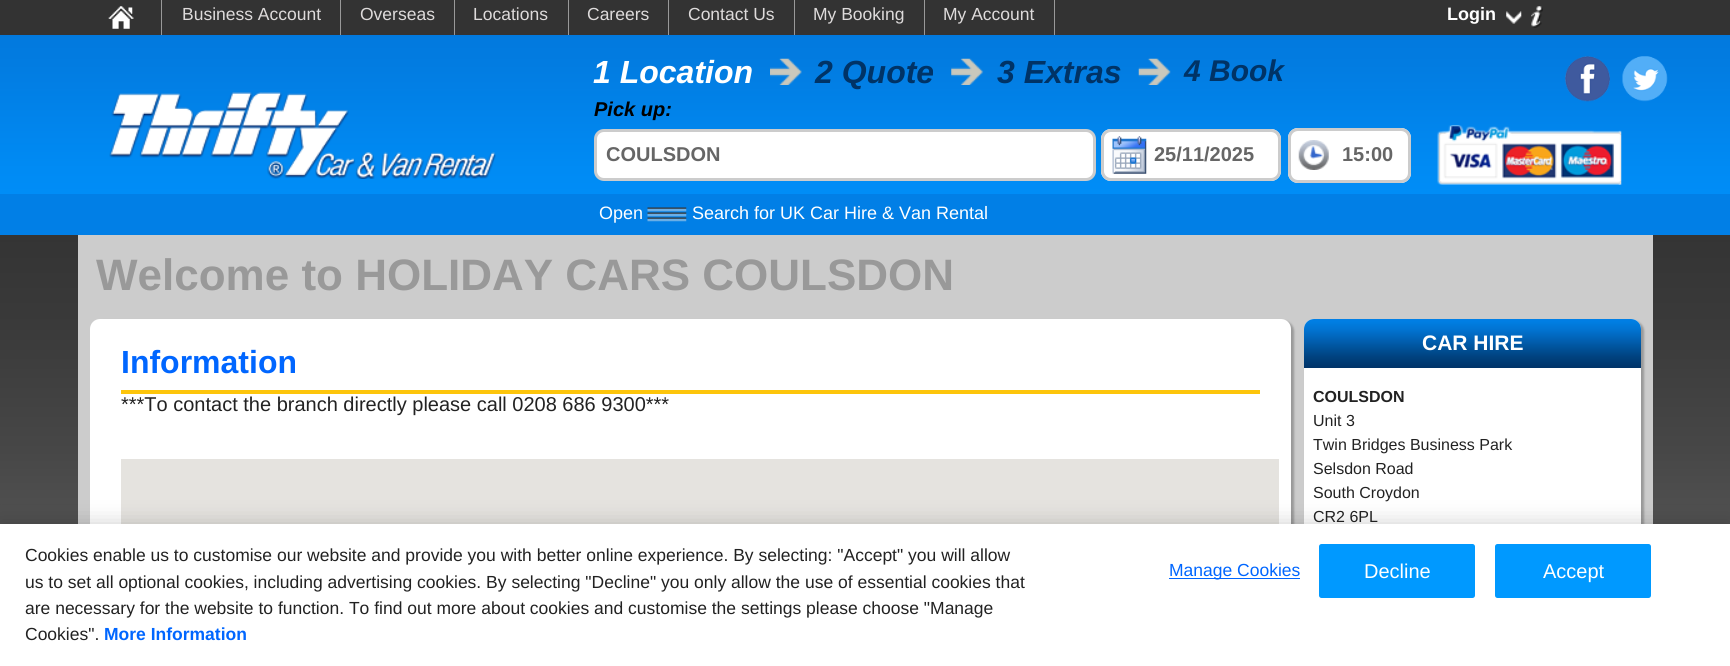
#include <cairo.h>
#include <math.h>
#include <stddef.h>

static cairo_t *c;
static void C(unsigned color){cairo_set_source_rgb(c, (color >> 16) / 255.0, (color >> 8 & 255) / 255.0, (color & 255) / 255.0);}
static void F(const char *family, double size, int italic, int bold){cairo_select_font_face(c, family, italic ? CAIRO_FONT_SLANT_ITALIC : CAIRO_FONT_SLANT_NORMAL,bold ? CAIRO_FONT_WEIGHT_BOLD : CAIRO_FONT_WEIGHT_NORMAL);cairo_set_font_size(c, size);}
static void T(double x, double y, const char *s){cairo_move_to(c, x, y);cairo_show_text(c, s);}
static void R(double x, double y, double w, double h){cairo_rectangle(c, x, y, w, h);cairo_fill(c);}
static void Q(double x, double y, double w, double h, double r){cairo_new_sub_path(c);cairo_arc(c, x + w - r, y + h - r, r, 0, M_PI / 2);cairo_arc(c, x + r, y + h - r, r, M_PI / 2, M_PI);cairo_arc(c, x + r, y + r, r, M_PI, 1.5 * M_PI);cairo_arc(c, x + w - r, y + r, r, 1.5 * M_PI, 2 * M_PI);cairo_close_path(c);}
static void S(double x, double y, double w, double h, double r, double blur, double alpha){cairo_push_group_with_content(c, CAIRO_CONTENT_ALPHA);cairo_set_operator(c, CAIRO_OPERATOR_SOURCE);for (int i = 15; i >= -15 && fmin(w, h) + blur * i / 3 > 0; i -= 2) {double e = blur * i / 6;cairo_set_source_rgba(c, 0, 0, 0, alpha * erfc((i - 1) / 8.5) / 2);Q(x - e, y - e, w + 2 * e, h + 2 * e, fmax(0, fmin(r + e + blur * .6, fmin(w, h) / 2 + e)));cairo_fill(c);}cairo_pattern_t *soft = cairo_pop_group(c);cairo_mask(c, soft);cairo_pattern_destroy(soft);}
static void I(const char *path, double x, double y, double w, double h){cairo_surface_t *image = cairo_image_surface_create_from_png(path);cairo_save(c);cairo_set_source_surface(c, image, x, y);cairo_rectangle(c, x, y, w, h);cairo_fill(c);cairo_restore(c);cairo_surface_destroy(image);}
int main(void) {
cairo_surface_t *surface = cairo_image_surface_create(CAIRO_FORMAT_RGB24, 1730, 666);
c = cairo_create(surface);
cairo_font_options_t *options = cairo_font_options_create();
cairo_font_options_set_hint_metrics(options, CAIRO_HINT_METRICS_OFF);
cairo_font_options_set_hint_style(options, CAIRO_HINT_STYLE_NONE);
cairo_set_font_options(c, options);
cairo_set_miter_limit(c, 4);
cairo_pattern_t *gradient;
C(0xffffff);
cairo_paint(c);
gradient = cairo_pattern_create_linear(865,0,865,235);
cairo_pattern_add_color_stop_rgba(gradient,0,0.008,0.463,0.859,1);
cairo_pattern_add_color_stop_rgba(gradient,.27,0.008,0.486,0.882,1);
cairo_pattern_add_color_stop_rgba(gradient,.72,0,0.545,0.957,1);
cairo_pattern_add_color_stop_rgba(gradient,1,0,0.565,0.984,1);
cairo_set_source(c,gradient);
cairo_pattern_destroy(gradient);
R(0,35,1730,159);
C(0x333333);
R(0,0,1730,35);
C(0x999999);
R(161,0,1,35);
I("1.png",108,6,26,23);
R(340,0,1,35);
F("Liberation Sans",17.5,0,0);
C(0xdedbdb);
T(182,20,"Business Account");
C(0x999999);
R(454,0,1,35);
C(0xdedbdb);
T(360,20,"Overseas");
C(0x999999);
R(568,0,1,35);
C(0xdedbdb);
T(473,20,"Locations");
C(0x999999);
R(668,0,1,35);
C(0xdedbdb);
T(587,20,"Careers");
C(0x999999);
R(794,0,1,35);
C(0xdedbdb);
T(688,20,"Contact Us");
C(0x999999);
R(924,0,1,35);
C(0xdedbdb);
T(813,20,"My Booking");
C(0x999999);
R(1054,0,1,35);
C(0xdedbdb);
T(943,20,"My Account");
I("2.png",1506,11,16,13);
F("Liberation Sans",18,0,1);
C(0xffffff);
T(1447,20,"Login");
I("3.png",1531,6,12,22);
I("4.png",770,58,32,27);
F("Liberation Sans",32,1,1);
T(593,83,"1 Location");
I("5.png",951,58,33,27);
C(0x003366);
T(815,83,"2 Quote");
I("6.png",1138,58,33,27);
T(997,83,"3 Extras");
F("Liberation Sans",30,1,1);
T(1184,81,"4 Book");
I("7.png",1437,125,185,60);
I("8.png",1565,56,45,46);
I("9.png",1622,56,46,46);
I("10.png",109,92,387,87);
F("Liberation Sans",20,1,1);
C(0x000000);
T(594,116,"Pick up:");
C(0xffffff);
Q(595.5,130.5,499,49,8.5);
cairo_fill_preserve(c);
C(0xcccccc);
cairo_set_line_width(c,3);
cairo_stroke(c);
F("Liberation Sans",20,0,1);
C(0x666666);
T(606,161,"COULSDON");
C(0xffffff);
Q(1101,129,180,52,10);
cairo_fill(c);
I("11.png",1112,136,35,38);
Q(1102.5,130.5,177,49,8.5);
C(0xcccccc);
cairo_stroke(c);
C(0x666666);
T(1154,161,"25/11/2025");
C(0xffffff);
Q(1288,128,123,55,10);
cairo_fill(c);
I("12.png",1298,140,31,30);
Q(1289.5,129.5,120,52,8.5);
C(0xcccccc);
cairo_stroke(c);
C(0x666666);
T(1342,161,"15:00");
C(0x017fe6);
R(0,194,1730,41);
F("Liberation Sans",18,0,0);
C(0xffffff);
T(599,219,"Open");
I("13.png",647,207,40,15);
T(692,219,"Search for UK Car Hire & Van Rental");
gradient = cairo_pattern_create_linear(865,235,865,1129);
cairo_pattern_add_color_stop_rgba(gradient,0,0.204,0.204,0.204,1);
cairo_pattern_add_color_stop_rgba(gradient,.1,0.227,0.227,0.227,1);
cairo_pattern_add_color_stop_rgba(gradient,.24,0.278,0.278,0.278,1);
cairo_pattern_add_color_stop_rgba(gradient,.73,0.514,0.514,0.514,1);
cairo_pattern_add_color_stop_rgba(gradient,.9,0.576,0.576,0.576,1);
cairo_pattern_add_color_stop_rgba(gradient,1,0.6,0.6,0.6,1);
cairo_set_source(c,gradient);
cairo_pattern_destroy(gradient);
R(0,235,1730,289);
C(0xcccccc);
R(78,235,1575,289);
F("Liberation Sans",44,0,1);
C(0x999999);
T(96,290,"Welcome to HOLIDAY CARS COULSDON");
C(0x999999);
S(93,321,1201,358,10,1,1);
C(0xffffff);
Q(90,319,1201,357,10);
cairo_fill(c);
C(0xfdc50b);
R(121,390,1139,4);
F("Liberation Sans",32,0,1);
C(0x0066ff);
T(121,373,"Information");
F("Liberation Sans",20,0,0);
C(0x222222);
T(121,411,"***To contact the branch directly please call 0208 686 9300***");
C(0xe5e3df);
R(121,459,1158,65);
C(0x999999);
S(1306,321,338,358,10,1,1);
C(0xffffff);
Q(1304,319,337,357,10);
cairo_fill(c);
gradient = cairo_pattern_create_linear(1473,319,1473,368);
cairo_pattern_add_color_stop_rgba(gradient,0,0.004,0.498,0.902,1);
cairo_pattern_add_color_stop_rgba(gradient,.06,0,0.494,0.886,1);
cairo_pattern_add_color_stop_rgba(gradient,.23,0.004,0.447,0.816,1);
cairo_pattern_add_color_stop_rgba(gradient,.77,0,0.259,0.498,1);
cairo_pattern_add_color_stop_rgba(gradient,1,0,0.2,0.408,1);
cairo_set_source(c,gradient);
cairo_pattern_destroy(gradient);
cairo_new_path(c);
cairo_move_to(c,1314,319);
cairo_line_to(c,1631,319);
cairo_curve_to(c,1636.5,319,1641,323.5,1641,329);
cairo_line_to(c,1641,368);
cairo_line_to(c,1304,368);
cairo_line_to(c,1304,329);
cairo_curve_to(c,1304,323.5,1308.5,319,1314,319);
cairo_close_path(c);
cairo_fill(c);
F("Liberation Sans",21,0,1);
C(0xffffff);
T(1422,350,"CAR HIRE");
F("Liberation Sans",16,0,1);
C(0x222222);
T(1313,402,"COULSDON");
F("Liberation Sans",16,0,0);
T(1313,426,"Unit 3");
T(1313,450,"Twin Bridges Business Park");
T(1313,474,"Selsdon Road");
T(1313,498,"South Croydon");
T(1313,522,"CR2 6PL");
C(0x000000);
S(0,524,1730,142,0,11,.2);
C(0xffffff);
R(0,524,1730,142);
F("Liberation Sans",17.5,0,0);
C(0x222222);
T(25,561,"Cookies enable us to customise our website and provide you with better online experience. By selecting: \"Accept\" you will allow");
T(25,588,"us to set all optional cookies, including advertising cookies. By selecting \"Decline\" you only allow the use of essential cookies that");
T(25,614,"are necessary for the website to function. To find out more about cookies and customise the settings please choose \"Manage");
T(25,640,"Cookies\".");
F("Liberation Sans",17.5,0,1);
C(0x0066ff);
T(104,640,"More Information");
R(1169,578,131,1);
F("Liberation Sans",17.5,0,0);
T(1169,576,"Manage Cookies");
C(0x0099ff);
Q(1319,544,156,54,2.5);
cairo_fill(c);
F("Liberation Sans",20,0,0);
C(0xffffff);
T(1364,578,"Decline");
C(0x0099ff);
Q(1495,544,156,54,2.5);
cairo_fill(c);
C(0xffffff);
T(1543,578,"Accept");
cairo_surface_write_to_png(surface, "o.png");
cairo_font_options_destroy(options);
cairo_destroy(c);
cairo_surface_destroy(surface);
return 0;
}
